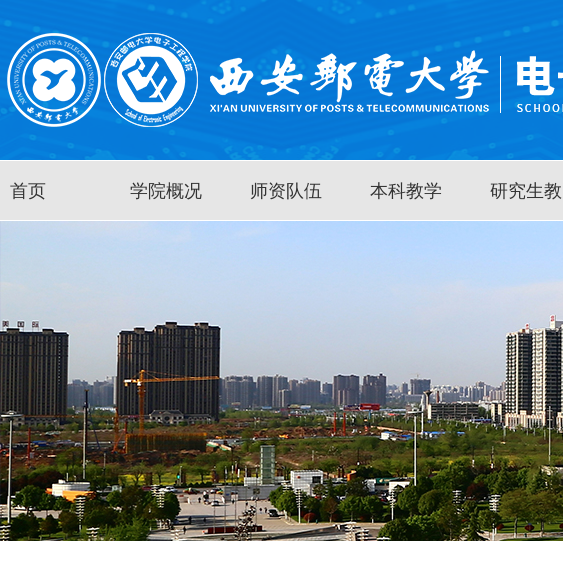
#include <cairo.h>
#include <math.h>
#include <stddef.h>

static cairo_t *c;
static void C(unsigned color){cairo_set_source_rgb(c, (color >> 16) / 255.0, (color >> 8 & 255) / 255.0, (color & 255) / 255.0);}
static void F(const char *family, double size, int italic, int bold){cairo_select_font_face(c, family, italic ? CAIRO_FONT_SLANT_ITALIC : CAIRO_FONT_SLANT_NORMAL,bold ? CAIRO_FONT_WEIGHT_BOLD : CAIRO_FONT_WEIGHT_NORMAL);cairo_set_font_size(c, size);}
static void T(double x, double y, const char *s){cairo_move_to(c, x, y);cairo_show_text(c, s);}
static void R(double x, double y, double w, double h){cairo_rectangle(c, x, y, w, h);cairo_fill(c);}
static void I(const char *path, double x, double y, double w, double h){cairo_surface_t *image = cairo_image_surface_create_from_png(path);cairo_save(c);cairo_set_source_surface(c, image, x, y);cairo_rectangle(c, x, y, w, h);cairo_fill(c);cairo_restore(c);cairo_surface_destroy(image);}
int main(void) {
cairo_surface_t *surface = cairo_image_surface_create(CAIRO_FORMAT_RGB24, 563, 561);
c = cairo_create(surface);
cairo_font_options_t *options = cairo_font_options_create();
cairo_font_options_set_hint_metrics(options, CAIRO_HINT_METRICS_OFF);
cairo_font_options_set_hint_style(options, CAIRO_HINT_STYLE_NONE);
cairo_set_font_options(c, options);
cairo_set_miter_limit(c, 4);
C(0xffffff);
cairo_paint(c);
I("1.png",0,0,563,160);
I("2.png",7,33,556,94);
C(0xe6e6e6);
R(0,161,563,59);
F("WenQuanYi Zen Hei Medium",18,0,0);
C(0x333333);
T(10,197,"首页");
T(130,197,"学院概况");
T(250,197,"师资队伍");
T(370,197,"本科教学");
T(490,197,"研究生教");
I("3.png",0,221,563,320);
cairo_surface_write_to_png(surface, "o.png");
cairo_font_options_destroy(options);
cairo_destroy(c);
cairo_surface_destroy(surface);
return 0;
}
